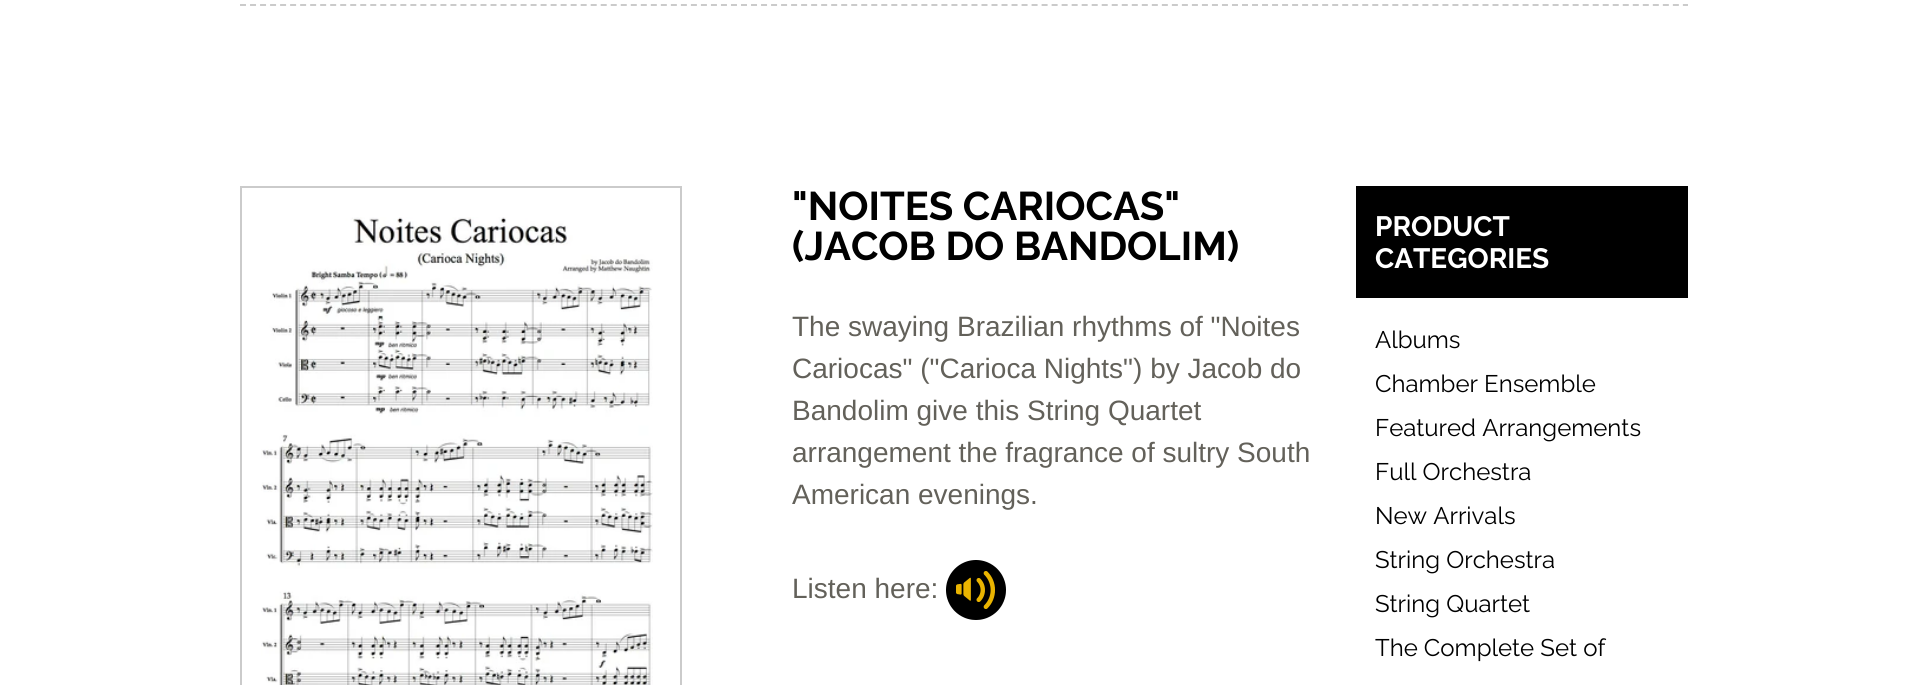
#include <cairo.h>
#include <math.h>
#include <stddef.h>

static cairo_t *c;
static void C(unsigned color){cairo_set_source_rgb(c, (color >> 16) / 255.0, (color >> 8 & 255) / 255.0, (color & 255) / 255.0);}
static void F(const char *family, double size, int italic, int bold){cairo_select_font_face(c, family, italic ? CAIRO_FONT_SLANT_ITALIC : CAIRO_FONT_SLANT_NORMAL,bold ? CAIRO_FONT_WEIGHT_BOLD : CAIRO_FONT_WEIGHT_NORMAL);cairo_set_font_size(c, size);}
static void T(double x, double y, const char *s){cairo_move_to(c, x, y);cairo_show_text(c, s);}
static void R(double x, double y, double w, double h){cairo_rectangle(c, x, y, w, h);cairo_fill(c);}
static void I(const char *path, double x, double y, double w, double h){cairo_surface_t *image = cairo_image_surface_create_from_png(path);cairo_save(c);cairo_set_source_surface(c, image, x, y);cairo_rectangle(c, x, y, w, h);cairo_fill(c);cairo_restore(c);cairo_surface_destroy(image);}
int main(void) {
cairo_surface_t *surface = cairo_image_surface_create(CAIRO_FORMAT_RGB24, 1925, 685);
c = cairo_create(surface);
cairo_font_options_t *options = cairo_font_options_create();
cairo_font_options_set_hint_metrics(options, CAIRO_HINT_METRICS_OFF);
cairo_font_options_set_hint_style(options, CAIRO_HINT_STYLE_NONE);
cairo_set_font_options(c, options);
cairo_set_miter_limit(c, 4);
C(0xffffff);
cairo_paint(c);
cairo_new_path(c);
cairo_move_to(c,240,5);
cairo_line_to(c,1688,5);
C(0xcbcbcb);
cairo_set_dash(c,(double[]){6,4.02},2,0);
cairo_stroke(c);
cairo_rectangle(c,241,187,440,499);
cairo_set_dash(c,NULL,0,0);
cairo_stroke(c);
I("1.png",261,217,392,468);
F("Raleway",40,0,1);
C(0x000000);
T(792,220,"\"NOITES CARIOCAS\"");
T(792,260,"(JACOB DO BANDOLIM)");
F("Liberation Sans",28,0,0);
C(0x63615a);
T(792,336,"The swaying Brazilian rhythms of \"Noites");
T(792,378,"Cariocas\" (\"Carioca Nights\") by Jacob do");
T(792,420,"Bandolim give this String Quartet");
T(792,462,"arrangement the fragrance of sultry South");
T(792,504,"American evenings.");
T(792,598,"Listen here:");
I("2.png",946,560,60,60);
C(0x000000);
R(1356,186,332,112);
F("Raleway",28,0,1);
C(0xffffff);
T(1375,236,"PRODUCT");
T(1375,268,"CATEGORIES");
F("Raleway",24,0,0);
C(0x000000);
T(1375,348,"Albums");
T(1375,392,"Chamber Ensemble");
T(1375,436,"Featured Arrangements");
T(1375,480,"Full Orchestra");
T(1375,524,"New Arrivals");
T(1375,568,"String Orchestra");
T(1375,612,"String Quartet");
T(1375,656,"The Complete Set of");
cairo_surface_write_to_png(surface, "o.png");
cairo_font_options_destroy(options);
cairo_destroy(c);
cairo_surface_destroy(surface);
return 0;
}
